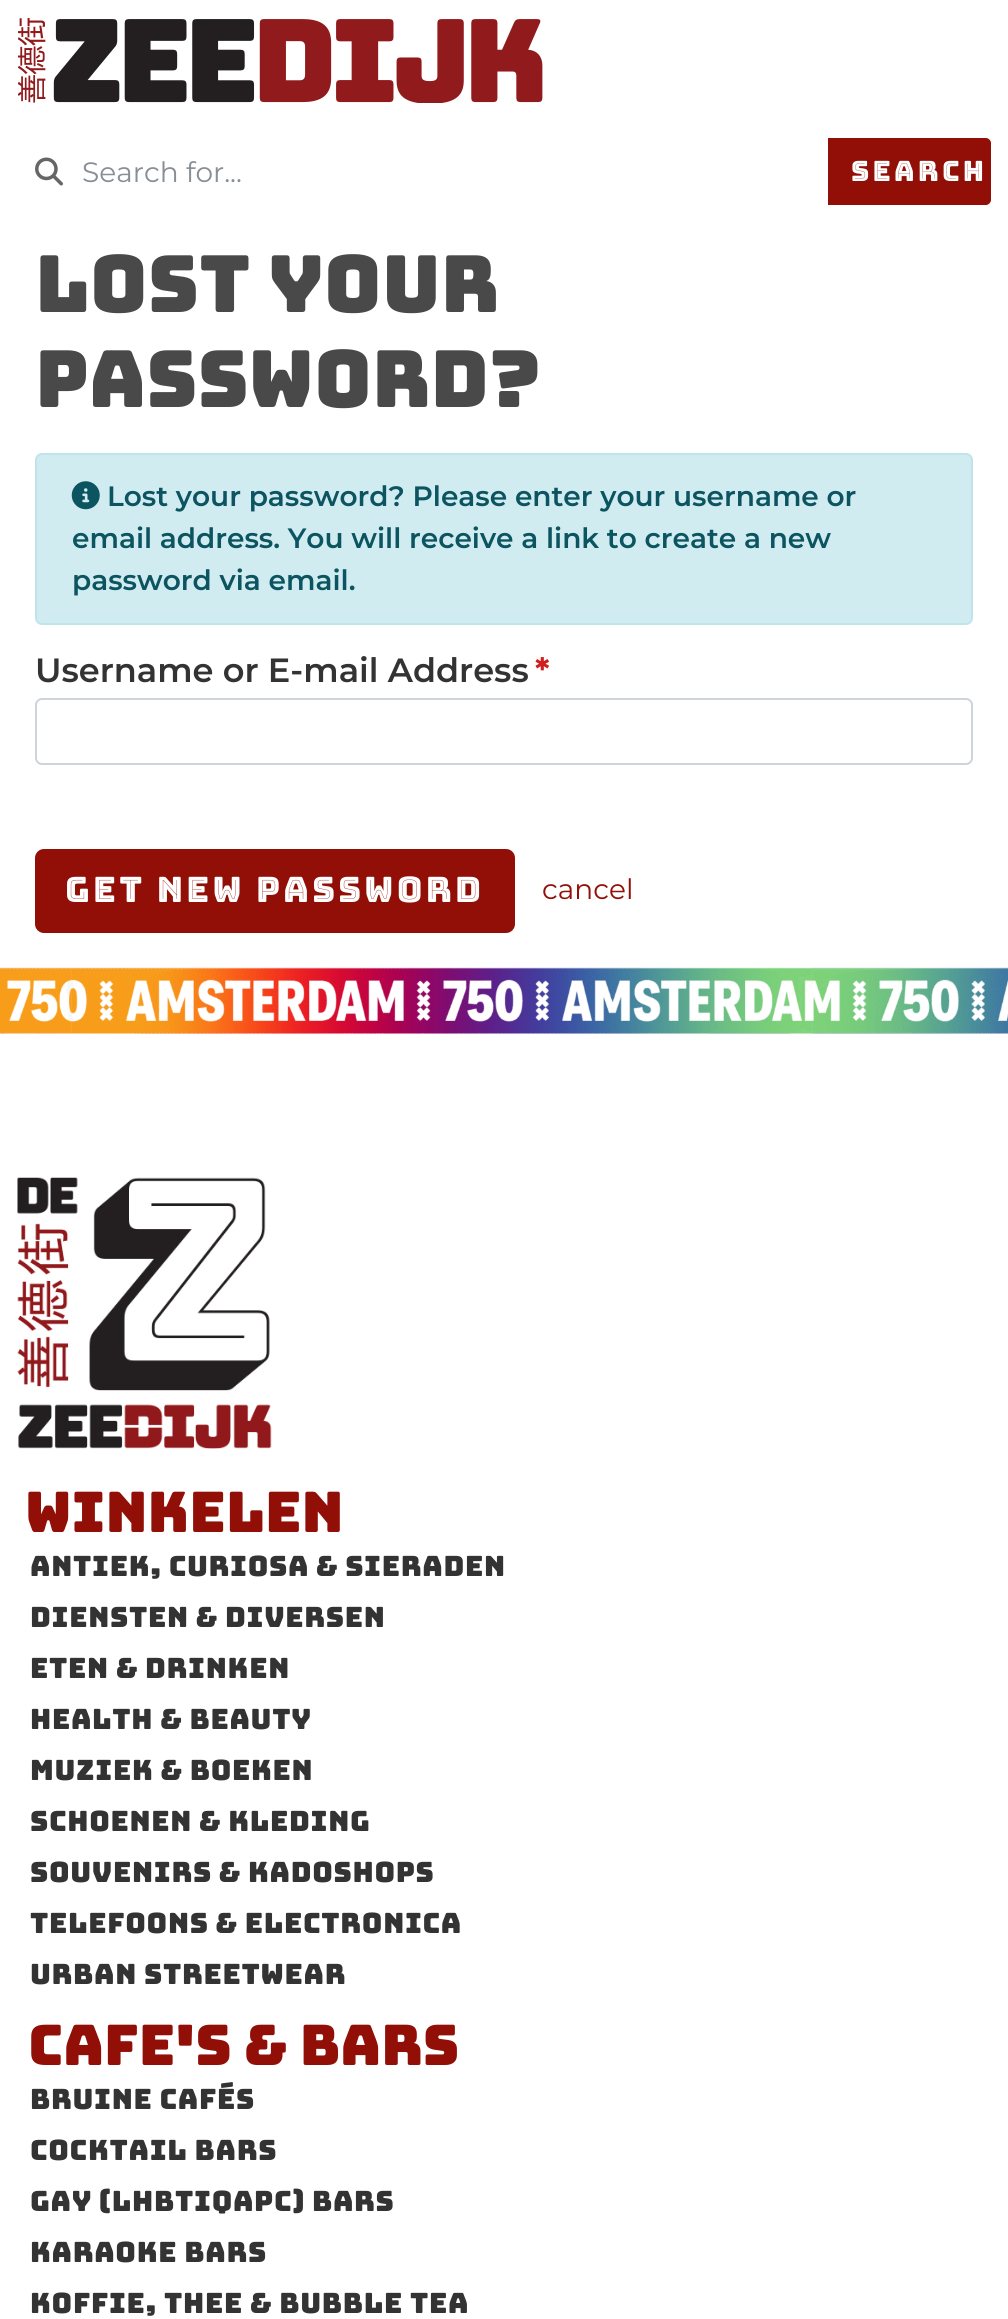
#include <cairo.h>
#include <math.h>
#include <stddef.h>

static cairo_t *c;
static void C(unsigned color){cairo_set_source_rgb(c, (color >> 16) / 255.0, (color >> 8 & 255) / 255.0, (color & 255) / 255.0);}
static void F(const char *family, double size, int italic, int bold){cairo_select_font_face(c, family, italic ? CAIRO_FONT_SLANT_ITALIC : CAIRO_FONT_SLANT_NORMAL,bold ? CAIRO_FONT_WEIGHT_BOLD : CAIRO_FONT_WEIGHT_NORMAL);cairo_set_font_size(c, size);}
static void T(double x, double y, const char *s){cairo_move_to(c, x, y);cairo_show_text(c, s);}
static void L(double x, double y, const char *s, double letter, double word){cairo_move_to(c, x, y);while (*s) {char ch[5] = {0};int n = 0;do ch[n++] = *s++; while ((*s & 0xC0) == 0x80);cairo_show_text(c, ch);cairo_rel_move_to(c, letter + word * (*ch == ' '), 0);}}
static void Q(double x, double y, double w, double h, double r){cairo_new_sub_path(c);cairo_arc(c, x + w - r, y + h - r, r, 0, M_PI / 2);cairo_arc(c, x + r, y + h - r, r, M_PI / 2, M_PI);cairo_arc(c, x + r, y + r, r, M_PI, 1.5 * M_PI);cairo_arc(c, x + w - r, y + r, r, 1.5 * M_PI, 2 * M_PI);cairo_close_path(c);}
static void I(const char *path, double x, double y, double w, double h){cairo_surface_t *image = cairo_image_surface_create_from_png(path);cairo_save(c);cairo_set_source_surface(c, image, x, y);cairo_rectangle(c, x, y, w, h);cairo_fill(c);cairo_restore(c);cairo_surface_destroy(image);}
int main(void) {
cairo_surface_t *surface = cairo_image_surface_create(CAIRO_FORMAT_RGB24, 1008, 2319);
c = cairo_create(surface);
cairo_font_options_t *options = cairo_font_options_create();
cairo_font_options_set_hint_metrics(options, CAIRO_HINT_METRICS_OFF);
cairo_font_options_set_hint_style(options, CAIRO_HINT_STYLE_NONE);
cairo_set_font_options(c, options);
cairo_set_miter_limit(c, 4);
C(0xffffff);
cairo_paint(c);
I("1.png",18,18,525,85);
I("2.png",35,157,28,29);
F("Montserrat",28,0,0);
C(0x868e96);
T(82,182,"Search for...");
C(0x920f07);
cairo_new_path(c);
cairo_move_to(c,829,139);
cairo_line_to(c,986,139);
cairo_curve_to(c,988,139,990,141,990,143);
cairo_line_to(c,990,200);
cairo_curve_to(c,990,202,988,204,986,204);
cairo_line_to(c,829,204);
cairo_close_path(c);
cairo_fill_preserve(c);
cairo_stroke(c);
F("Bungee Inline",28,0,0);
C(0xffffff);
L(851,181,"SEARCH",3.3,0);
F("Bungee",78.75,0,0);
C(0x494949);
T(35,312,"Lost your");
T(35,407,"password?");
C(0xd1ecf1);
Q(36,454,936,170,6);
cairo_fill_preserve(c);
C(0xbee5eb);
cairo_stroke(c);
I("3.png",71,481,29,29);
F("Montserrat SemiBold",28,0,0);
C(0x0c5460);
T(107,506,"Lost your password? Please enter your username or");
T(72,548,"email address. You will receive a link to create a new");
T(72,590,"password via email.");
F("Montserrat SemiBold",33.6,0,0);
C(0x333333);
T(35,682,"Username or E-mail Address");
F("Montserrat",33.6,0,1);
C(0xcd201f);
T(535,682,"*");
Q(36,699,936,65,6);
C(0xced4da);
cairo_stroke(c);
C(0x920f07);
Q(36,850,478,82,8);
cairo_fill_preserve(c);
cairo_stroke(c);
F("Bungee Inline",35,0,0);
C(0xffffff);
L(65,902,"Get New Password",3.3,0);
F("Montserrat",28,0,0);
C(0x920f07);
T(542,899,"cancel");
I("4.png",0,967,1008,67);
I("5.png",17,1177,255,272);
F("Bungee",56,0,0);
T(25,1532,"Winkelen");
F("Bungee",28,0,0);
C(0x333333);
L(30,1576,"Antiek, Curiosa & Sieraden",.7,0);
L(30,1627,"Diensten & Diversen",.7,0);
L(30,1678,"Eten & Drinken",.7,0);
L(30,1729,"Health & Beauty",.7,0);
L(30,1780,"Muziek & Boeken",.7,0);
L(30,1831,"Schoenen & Kleding",.7,0);
L(30,1882,"Souvenirs & Kadoshops",.7,0);
L(30,1933,"Telefoons & Electronica",.7,0);
L(30,1984,"Urban Streetwear",.7,0);
F("Bungee",56,0,0);
C(0x920f07);
T(28,2065,"Cafe's & Bars");
F("Bungee",28,0,0);
C(0x333333);
L(30,2109,"Bruine cafés",.7,0);
L(30,2160,"Cocktail bars",.7,0);
L(30,2211,"Gay (LHBTIQAPC) Bars",.7,0);
L(30,2262,"Karaoke Bars",.7,0);
L(30,2313,"Koffie, thee & Bubble tea",.7,0);
cairo_surface_write_to_png(surface, "o.png");
cairo_font_options_destroy(options);
cairo_destroy(c);
cairo_surface_destroy(surface);
return 0;
}
